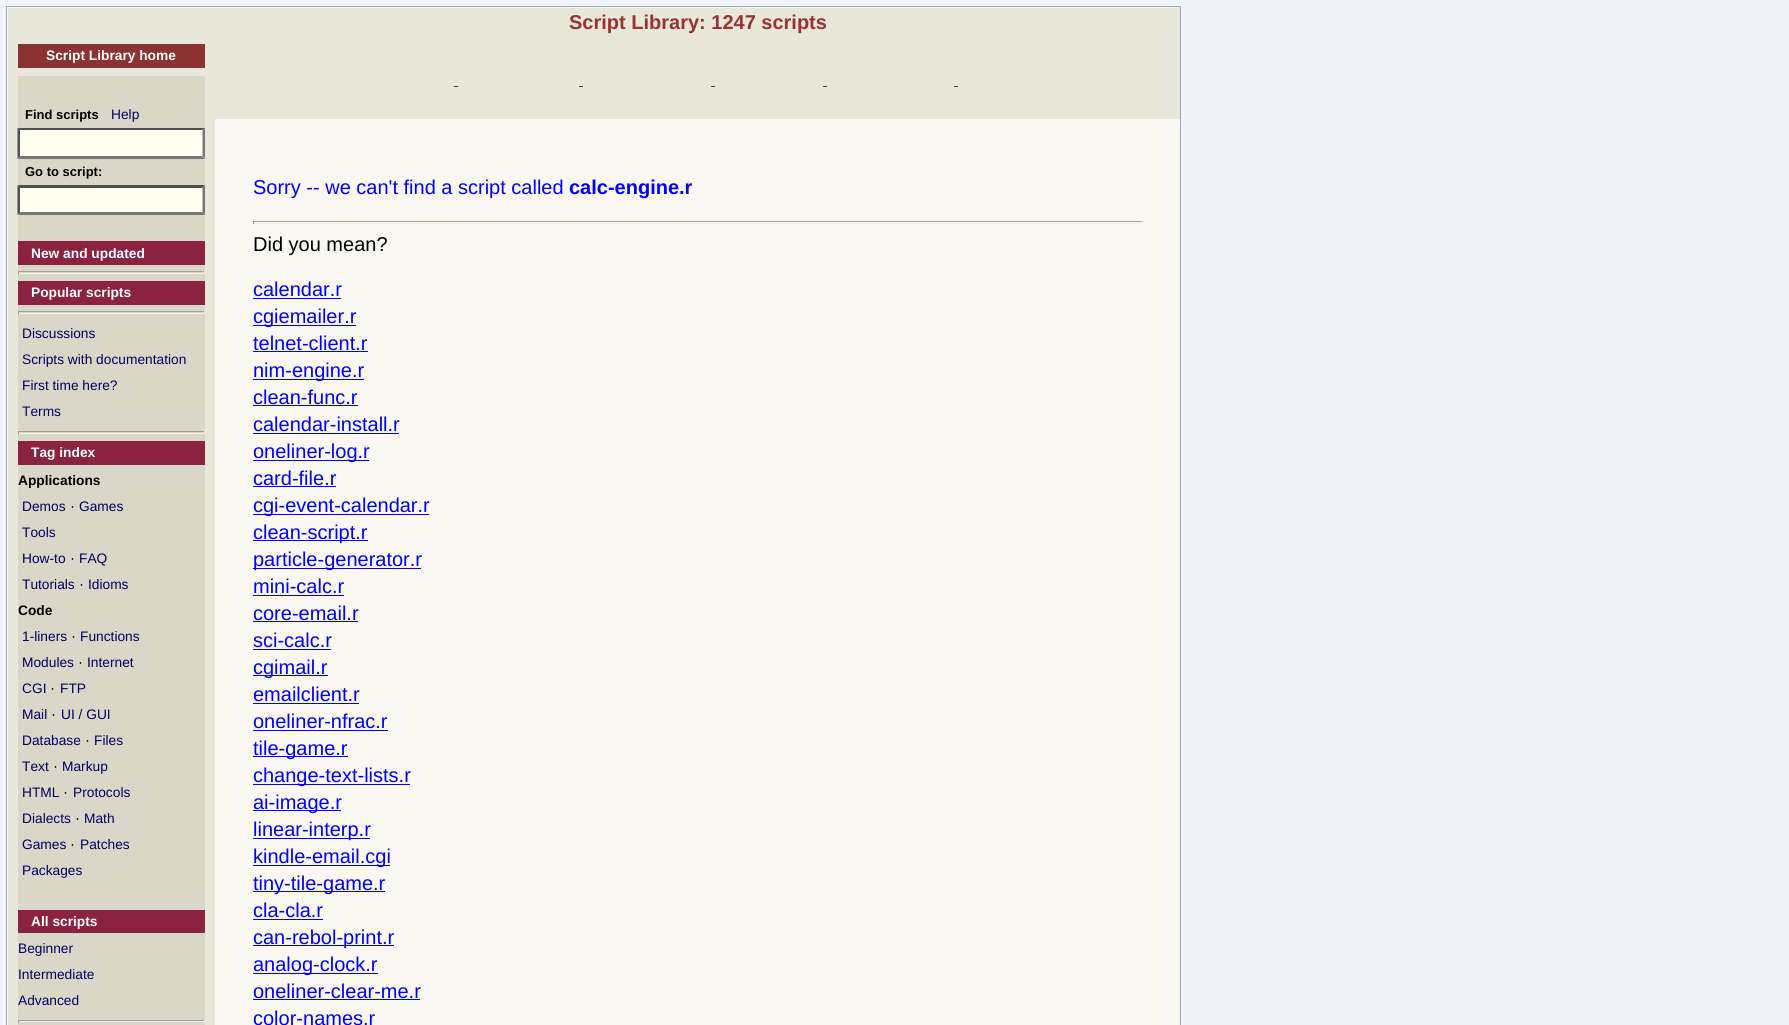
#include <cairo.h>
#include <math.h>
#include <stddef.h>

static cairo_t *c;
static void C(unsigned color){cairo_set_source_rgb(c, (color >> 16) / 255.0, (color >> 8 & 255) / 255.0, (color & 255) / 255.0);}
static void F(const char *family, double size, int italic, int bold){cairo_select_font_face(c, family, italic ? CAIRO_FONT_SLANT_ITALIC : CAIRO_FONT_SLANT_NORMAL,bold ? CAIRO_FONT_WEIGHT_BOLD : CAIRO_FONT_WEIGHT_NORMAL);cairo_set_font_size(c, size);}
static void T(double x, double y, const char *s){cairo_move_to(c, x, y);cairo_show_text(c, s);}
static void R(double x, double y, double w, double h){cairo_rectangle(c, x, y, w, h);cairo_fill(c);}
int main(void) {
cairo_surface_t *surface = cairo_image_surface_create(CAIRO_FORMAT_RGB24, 1789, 1025);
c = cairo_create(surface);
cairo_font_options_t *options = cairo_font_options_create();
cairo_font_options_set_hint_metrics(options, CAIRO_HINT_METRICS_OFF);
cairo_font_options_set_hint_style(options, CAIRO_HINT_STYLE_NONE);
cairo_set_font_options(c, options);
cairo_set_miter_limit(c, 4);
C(0xf1f4fb);
cairo_paint(c);
C(0xf9f8f2);
cairo_rectangle(c,6.5,6.5,1174,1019);
cairo_fill_preserve(c);
C(0x99abbb);
cairo_set_line_width(c,1);
cairo_stroke(c);
C(0xe9e6da);
R(8,8,207,1017);
C(0x8b3232);
R(18,44,187,24);
F("Liberation Sans",13.75,0,1);
C(0xffffff);
T(46,60,"Script Library home");
C(0xdbd7c8);
R(18,76,187,949);
F("Liberation Sans",13,0,1);
C(0x000000);
T(25,119,"Find scripts");
F("Liberation Sans",13.75,0,0);
C(0x000060);
T(111,119,"Help");
C(0xfffff0);
R(18,128,187,31);
C(0x4f4f4f);
cairo_new_path(c);
cairo_move_to(c,18,128);
cairo_line_to(c,205,128);
cairo_line_to(c,202,130);
cairo_line_to(c,20,130);
cairo_close_path(c);
cairo_fill(c);
C(0x767676);
cairo_new_path(c);
cairo_move_to(c,205,127.5);
cairo_line_to(c,205,159);
cairo_line_to(c,202.5,156);
cairo_line_to(c,202.5,130);
cairo_close_path(c);
cairo_fill(c);
cairo_new_path(c);
cairo_move_to(c,205,159);
cairo_line_to(c,18,159);
cairo_line_to(c,20,156);
cairo_line_to(c,202,156);
cairo_close_path(c);
cairo_fill(c);
C(0x4f4f4f);
cairo_new_path(c);
cairo_move_to(c,17.5,159);
cairo_line_to(c,17.5,127.5);
cairo_line_to(c,20,130);
cairo_line_to(c,20,156);
cairo_close_path(c);
cairo_fill(c);
F("Liberation Sans",13,0,1);
C(0x000000);
T(25,176,"Go to script:");
C(0xfffff0);
R(18,185,187,30);
C(0x4f4f4f);
cairo_new_path(c);
cairo_move_to(c,18,185);
cairo_line_to(c,205,185);
cairo_line_to(c,202,188);
cairo_line_to(c,20,188);
cairo_close_path(c);
cairo_fill(c);
C(0x767676);
cairo_new_path(c);
cairo_move_to(c,205,185);
cairo_line_to(c,205,215);
cairo_line_to(c,202.5,212.5);
cairo_line_to(c,202.5,187.5);
cairo_close_path(c);
cairo_fill(c);
cairo_new_path(c);
cairo_move_to(c,205,215);
cairo_line_to(c,18,215);
cairo_line_to(c,20,212);
cairo_line_to(c,202,212);
cairo_close_path(c);
cairo_fill(c);
C(0x4f4f4f);
cairo_new_path(c);
cairo_move_to(c,17.5,215);
cairo_line_to(c,17.5,185);
cairo_line_to(c,20,187.5);
cairo_line_to(c,20,212.5);
cairo_close_path(c);
cairo_fill(c);
C(0x8b2242);
R(18,241,187,24);
F("Liberation Sans",13.75,0,1);
C(0xffffff);
T(31,258,"New and updated");
C(0x9f9f9f);
R(18,271,187,1);
C(0xeeeeee);
R(204,271,1,3);
R(18,273,187,1);
C(0x9f9f9f);
R(18,271,1,3);
C(0x8b2242);
R(18,281,187,24);
C(0xffffff);
T(31,297,"Popular scripts");
C(0x9f9f9f);
R(18,311,187,1);
C(0xeeeeee);
R(204,311,1,3);
R(18,313,187,1);
C(0x9f9f9f);
R(18,311,1,3);
F("Liberation Sans",13.75,0,0);
C(0x000060);
T(22,338,"Discussions");
T(22,364,"Scripts with documentation");
T(22,390,"First time here?");
T(22,416,"Terms");
C(0x9f9f9f);
R(18,431,187,1);
C(0xeeeeee);
R(204,431,1,3);
R(18,433,187,1);
C(0x9f9f9f);
R(18,431,1,3);
C(0x8b2242);
R(18,441,187,24);
F("Liberation Sans",13.75,0,1);
C(0xffffff);
T(31,457,"Tag index");
C(0x000000);
T(18,485,"Applications");
F("Liberation Sans",13.75,0,0);
C(0x000060);
T(22,511,"Demos");
F("Liberation Sans",15,0,0);
C(0x000000);
T(70,511,"·");
F("Liberation Sans",13.75,0,0);
C(0x000060);
T(79,511,"Games");
T(22,537,"Tools");
T(22,563,"How-to");
F("Liberation Sans",15,0,0);
C(0x000000);
T(70,563,"·");
F("Liberation Sans",13.75,0,0);
C(0x000060);
T(79,563,"FAQ");
T(22,589,"Tutorials");
F("Liberation Sans",15,0,0);
C(0x000000);
T(79,589,"·");
F("Liberation Sans",13.75,0,0);
C(0x000060);
T(88,589,"Idioms");
F("Liberation Sans",13.75,0,1);
C(0x000000);
T(18,615,"Code");
F("Liberation Sans",13.75,0,0);
C(0x000060);
T(22,641,"1-liners");
F("Liberation Sans",15,0,0);
C(0x000000);
T(71,641,"·");
F("Liberation Sans",13.75,0,0);
C(0x000060);
T(80,641,"Functions");
T(22,667,"Modules");
F("Liberation Sans",15,0,0);
C(0x000000);
T(78,667,"·");
F("Liberation Sans",13.75,0,0);
C(0x000060);
T(87,667,"Internet");
T(22,693,"CGI");
F("Liberation Sans",15,0,0);
C(0x000000);
T(50,693,"·");
F("Liberation Sans",13.75,0,0);
C(0x000060);
T(60,693,"FTP");
T(22,719,"Mail");
F("Liberation Sans",15,0,0);
C(0x000000);
T(51,719,"·");
F("Liberation Sans",13.75,0,0);
C(0x000060);
T(61,719,"UI / GUI");
T(22,745,"Database");
F("Liberation Sans",15,0,0);
C(0x000000);
T(85,745,"·");
F("Liberation Sans",13.75,0,0);
C(0x000060);
T(94,745,"Files");
T(22,771,"Text");
F("Liberation Sans",15,0,0);
C(0x000000);
T(53,771,"·");
F("Liberation Sans",13.75,0,0);
C(0x000060);
T(62,771,"Markup");
T(22,797,"HTML");
F("Liberation Sans",15,0,0);
C(0x000000);
T(63,797,"·");
F("Liberation Sans",13.75,0,0);
C(0x000060);
T(73,797,"Protocols");
T(22,823,"Dialects");
F("Liberation Sans",15,0,0);
C(0x000000);
T(75,823,"·");
F("Liberation Sans",13.75,0,0);
C(0x000060);
T(84,823,"Math");
T(22,849,"Games");
F("Liberation Sans",15,0,0);
C(0x000000);
T(70,849,"·");
F("Liberation Sans",13.75,0,0);
C(0x000060);
T(80,849,"Patches");
T(22,875,"Packages");
C(0x8b2242);
R(18,910,187,23);
F("Liberation Sans",13.75,0,1);
C(0xffffff);
T(31,926,"All scripts");
F("Liberation Sans",13.75,0,0);
C(0x000060);
T(18,953,"Beginner");
T(18,979,"Intermediate");
T(18,1005,"Advanced");
C(0x9f9f9f);
R(18,1020,187,1);
C(0xeeeeee);
R(204,1020,1,3);
R(18,1021,187,1);
C(0x9f9f9f);
R(18,1020,1,3);
C(0xe9e6da);
R(215,8,965,111);
F("Liberation Sans",20,0,1);
C(0x993333);
T(569,29,"Script Library: 1247 scripts");
C(0x254293);
R(454,86,4,1);
R(579,86,4,1);
R(711,86,4,1);
R(823,86,4,1);
R(954,86,4,1);
F("Liberation Sans",20,0,0);
C(0x0000ff);
T(253,194,"Sorry -- we can't find a script called");
F("Liberation Sans",20,0,1);
T(569,194,"calc-engine.r");
C(0x9f9f9f);
R(253,221,890,1);
C(0xeeeeee);
R(1141,221,1,3);
R(253,223,890,1);
C(0x9f9f9f);
R(253,221,1,3);
F("Liberation Sans",20,0,0);
C(0x000000);
T(253,251,"Did you mean?");
C(0x0000ff);
T(253,296,"calendar.r");
R(253,298,88,1);
R(253,325,103,1);
T(253,323,"cgiemailer.r");
T(253,350,"telnet-client.r");
R(253,351,115,1);
R(253,379,111,1);
T(253,377,"nim-engine.r");
T(253,404,"clean-func.r");
R(253,405,105,1);
T(253,431,"calendar-install.r");
R(253,433,146,1);
R(253,460,116,1);
T(253,458,"oneliner-log.r");
T(253,485,"card-file.r");
R(253,486,83,1);
R(253,514,176,1);
T(253,512,"cgi-event-calendar.r");
R(253,540,115,1);
T(253,539,"clean-script.r");
R(253,568,168,1);
T(253,566,"particle-generator.r");
T(253,593,"mini-calc.r");
R(253,595,91,1);
T(253,620,"core-email.r");
R(253,621,105,1);
T(253,647,"sci-calc.r");
R(253,649,78,1);
R(253,675,75,1);
T(253,674,"cgimail.r");
T(253,701,"emailclient.r");
R(253,703,106,1);
T(253,728,"oneliner-nfrac.r");
R(253,730,135,1);
R(253,756,95,1);
T(253,755,"tile-game.r");
R(253,784,157,1);
T(253,782,"change-text-lists.r");
R(253,810,88,1);
T(253,809,"ai-image.r");
R(253,838,117,1);
T(253,836,"linear-interp.r");
R(253,865,137,1);
T(253,863,"kindle-email.cgi");
R(253,891,132,1);
T(253,890,"tiny-tile-game.r");
T(253,917,"cla-cla.r");
R(253,919,70,1);
R(253,945,141,1);
T(253,944,"can-rebol-print.r");
R(253,973,125,1);
T(253,971,"analog-clock.r");
T(253,998,"oneliner-clear-me.r");
R(253,999,167,1);
T(253,1025,"color-names.r");
cairo_surface_write_to_png(surface, "o.png");
cairo_font_options_destroy(options);
cairo_destroy(c);
cairo_surface_destroy(surface);
return 0;
}
